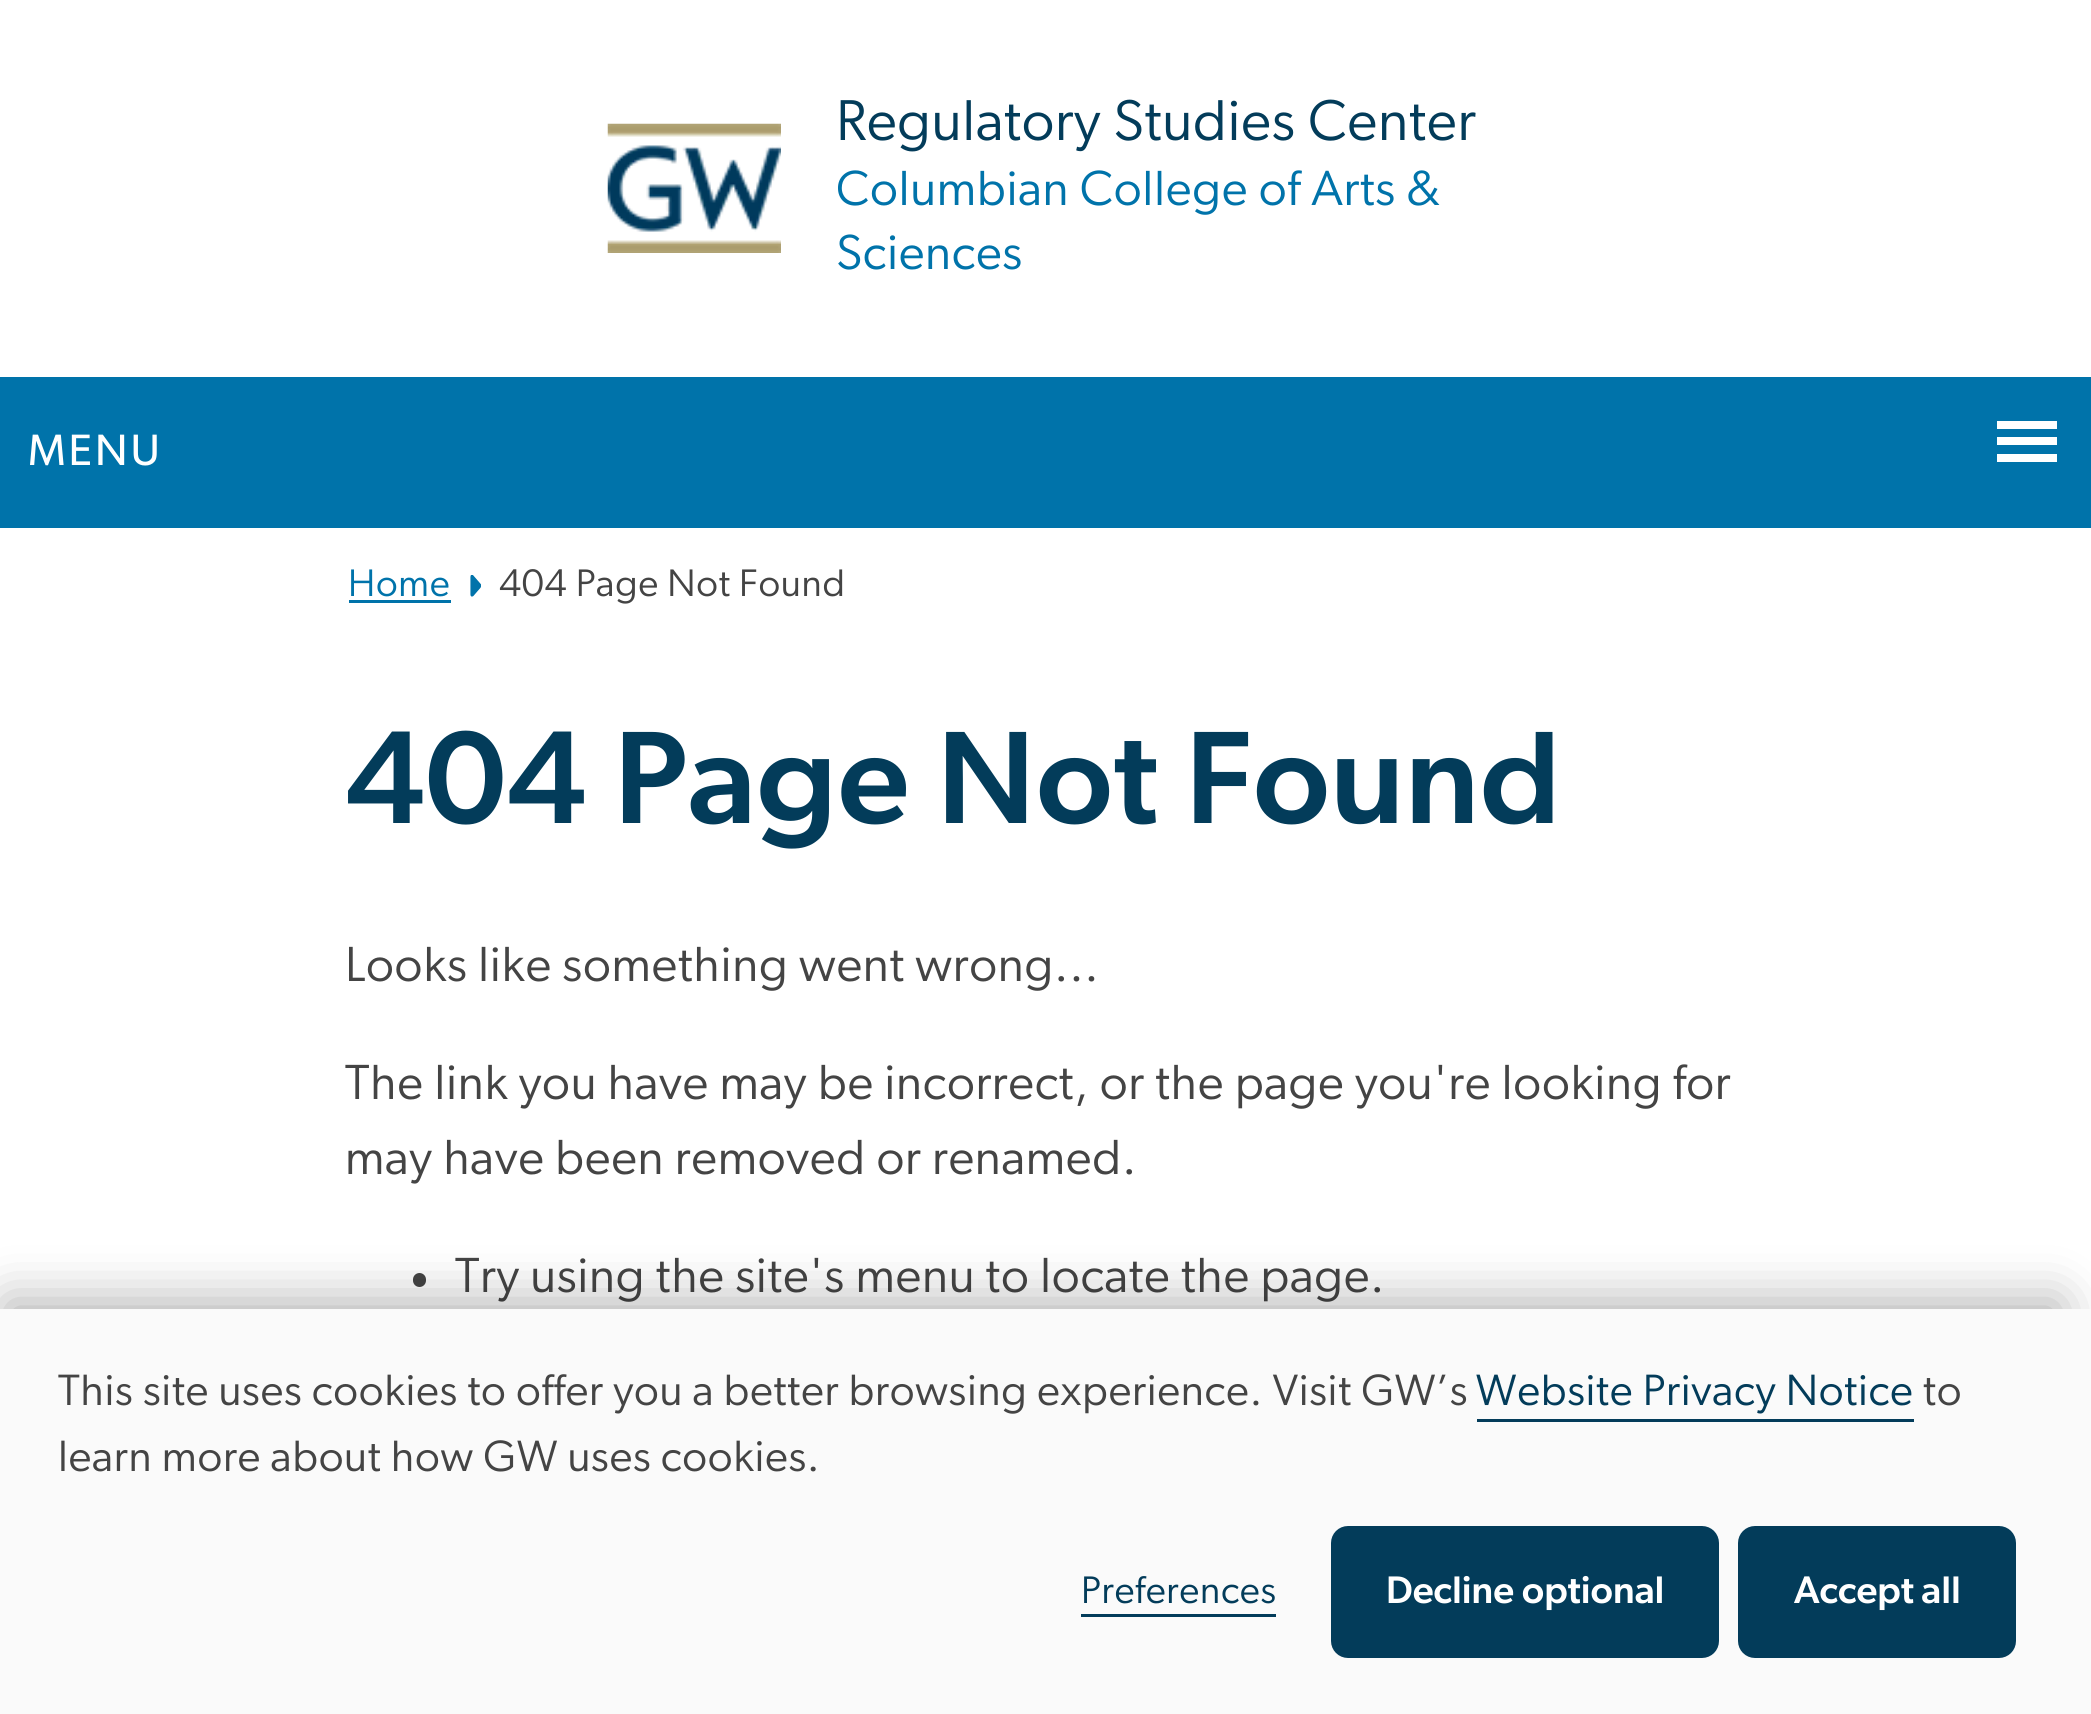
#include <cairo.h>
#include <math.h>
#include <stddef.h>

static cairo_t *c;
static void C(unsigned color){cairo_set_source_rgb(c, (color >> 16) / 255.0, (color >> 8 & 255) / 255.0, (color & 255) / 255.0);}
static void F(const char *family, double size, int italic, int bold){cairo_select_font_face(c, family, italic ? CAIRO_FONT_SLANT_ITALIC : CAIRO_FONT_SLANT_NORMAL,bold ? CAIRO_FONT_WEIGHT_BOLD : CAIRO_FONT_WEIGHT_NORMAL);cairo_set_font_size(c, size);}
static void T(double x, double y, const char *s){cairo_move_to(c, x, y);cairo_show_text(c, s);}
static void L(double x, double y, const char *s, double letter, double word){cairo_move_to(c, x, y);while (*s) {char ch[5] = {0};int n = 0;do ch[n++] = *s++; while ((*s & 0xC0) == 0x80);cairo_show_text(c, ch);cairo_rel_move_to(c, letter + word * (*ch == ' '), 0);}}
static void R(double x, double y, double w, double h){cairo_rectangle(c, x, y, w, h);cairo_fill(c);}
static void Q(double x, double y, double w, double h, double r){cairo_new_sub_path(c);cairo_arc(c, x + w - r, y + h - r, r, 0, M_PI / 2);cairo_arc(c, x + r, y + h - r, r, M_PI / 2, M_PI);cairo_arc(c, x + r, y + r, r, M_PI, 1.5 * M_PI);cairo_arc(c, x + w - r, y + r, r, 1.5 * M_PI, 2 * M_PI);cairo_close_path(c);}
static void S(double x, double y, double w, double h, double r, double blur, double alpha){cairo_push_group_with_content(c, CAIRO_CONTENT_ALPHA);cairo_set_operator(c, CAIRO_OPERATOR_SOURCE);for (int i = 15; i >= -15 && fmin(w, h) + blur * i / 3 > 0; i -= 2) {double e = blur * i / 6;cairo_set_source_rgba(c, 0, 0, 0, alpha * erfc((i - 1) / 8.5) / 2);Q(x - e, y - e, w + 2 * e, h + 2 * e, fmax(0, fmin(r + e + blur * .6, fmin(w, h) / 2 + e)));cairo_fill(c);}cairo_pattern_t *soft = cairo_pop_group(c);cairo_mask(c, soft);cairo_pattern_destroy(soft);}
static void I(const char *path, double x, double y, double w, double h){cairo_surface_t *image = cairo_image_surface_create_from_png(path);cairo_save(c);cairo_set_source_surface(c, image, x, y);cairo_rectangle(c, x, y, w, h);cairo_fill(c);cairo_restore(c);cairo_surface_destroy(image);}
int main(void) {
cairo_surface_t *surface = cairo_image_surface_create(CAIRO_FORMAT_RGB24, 2091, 1714);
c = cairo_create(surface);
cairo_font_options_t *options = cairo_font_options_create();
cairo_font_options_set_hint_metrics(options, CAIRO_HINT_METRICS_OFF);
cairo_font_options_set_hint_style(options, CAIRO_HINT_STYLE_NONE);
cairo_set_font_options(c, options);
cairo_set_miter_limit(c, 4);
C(0xffffff);
cairo_paint(c);
I("1.png",607,123,174,130);
F("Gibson",57.75,0,0);
C(0x033c5a);
L(836,140,"Regulatory Studies Center",.7,0);
F("Gibson",49.5,0,0);
C(0x0073aa);
L(836,205,"Columbian College of Arts &",.7,0);
L(836,269,"Sciences",.7,0);
R(0,377,2091,151);
F("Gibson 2",44,0,0);
C(0xffffff);
L(28,465,"MENU",3,0);
R(1997,421,60,8);
R(1997,437,60,8);
R(1997,454,60,8);
F("Gibson",38.5,0,0);
C(0x0073aa);
L(348,596,"Home",.7,0);
R(349,600,102,3);
I("2.png",470,575,11,22);
C(0x444444);
L(499,596,"404 Page Not Found",.7,0);
F("Gibson Medium",132,0,0);
C(0x033c5a);
L(345,823,"404 Page Not Found",.7,0);
F("Gibson",49.5,0,0);
C(0x444444);
L(345,981,"Looks like something went wrong...",.7,0);
L(345,1099,"The link you have may be incorrect, or the page you're looking for",.7,0);
L(345,1174,"may have been removed or renamed.",.7,0);
Q(413,1273,13,14,6.5);
cairo_fill(c);
L(455,1292,"Try using the site's menu to locate the page.",.7,0);
C(0x050505);
S(6,1301,2054,368,0,26,.32);
C(0xfafafa);
R(0,1309,2091,405);
F("Gibson",44,0,0);
C(0x444444);
L(58,1405,"This site uses cookies to offer you a better browsing experience. Visit GW’s",.7,0);
C(0x033c5a);
R(1477,1419,437,3);
L(1476,1405,"Website Privacy Notice",.7,0);
C(0x444444);
L(1923,1405,"to",.7,0);
L(58,1471,"learn more about how GW uses cookies.",.7,0);
C(0x033c5a);
R(1081,1614,195,3);
F("Gibson",38.5,0,0);
L(1081,1603,"Preferences",.7,0);
Q(1335,1530,380,124,13);
cairo_fill_preserve(c);
cairo_set_line_width(c,8);
cairo_stroke(c);
F("Gibson Medium",38.5,0,0);
C(0xffffff);
T(1386,1603,"Decline optional");
C(0x033c5a);
Q(1742,1530,270,124,13);
cairo_fill_preserve(c);
cairo_stroke(c);
C(0xffffff);
T(1794,1603,"Accept all");
cairo_surface_write_to_png(surface, "o.png");
cairo_font_options_destroy(options);
cairo_destroy(c);
cairo_surface_destroy(surface);
return 0;
}
